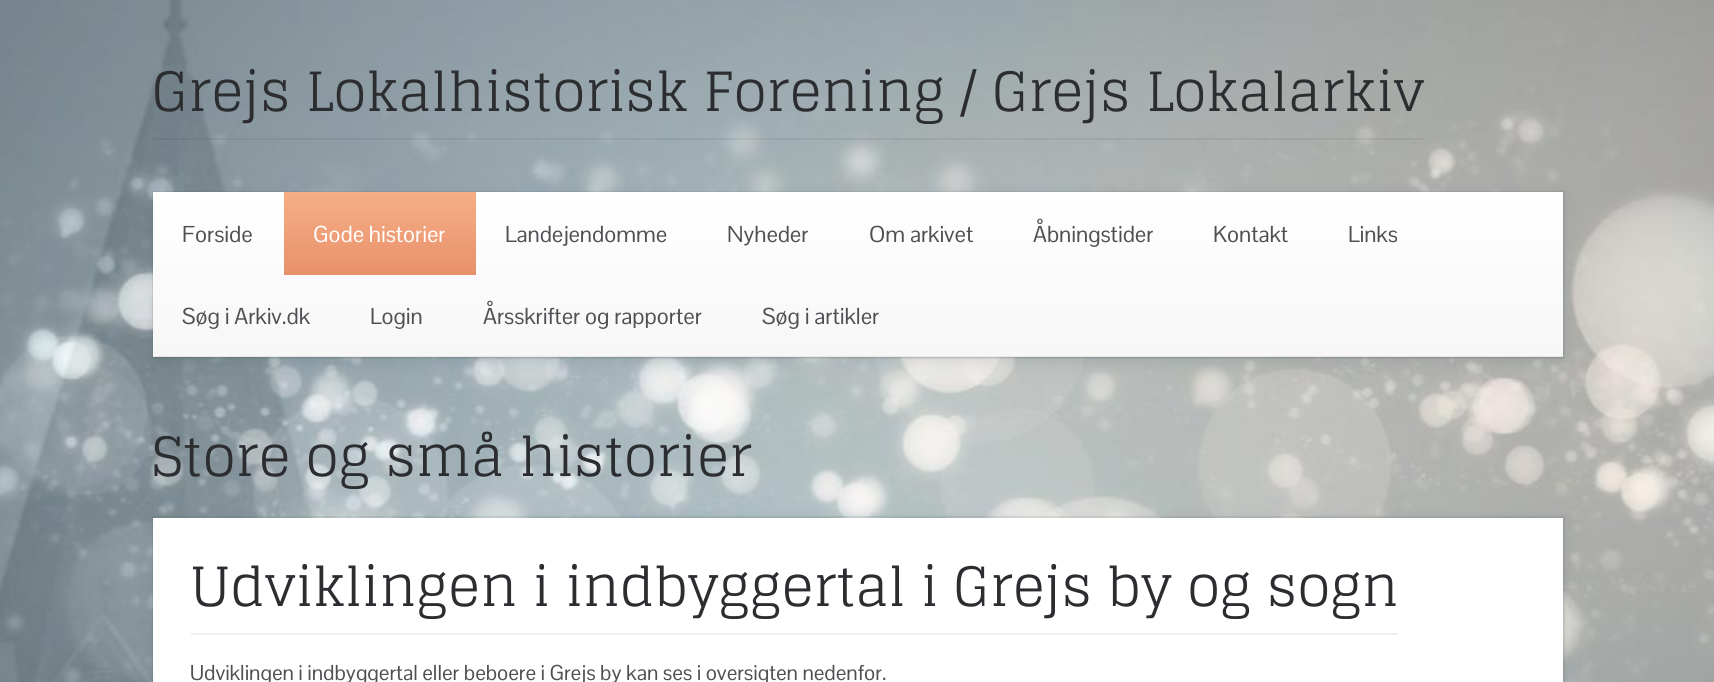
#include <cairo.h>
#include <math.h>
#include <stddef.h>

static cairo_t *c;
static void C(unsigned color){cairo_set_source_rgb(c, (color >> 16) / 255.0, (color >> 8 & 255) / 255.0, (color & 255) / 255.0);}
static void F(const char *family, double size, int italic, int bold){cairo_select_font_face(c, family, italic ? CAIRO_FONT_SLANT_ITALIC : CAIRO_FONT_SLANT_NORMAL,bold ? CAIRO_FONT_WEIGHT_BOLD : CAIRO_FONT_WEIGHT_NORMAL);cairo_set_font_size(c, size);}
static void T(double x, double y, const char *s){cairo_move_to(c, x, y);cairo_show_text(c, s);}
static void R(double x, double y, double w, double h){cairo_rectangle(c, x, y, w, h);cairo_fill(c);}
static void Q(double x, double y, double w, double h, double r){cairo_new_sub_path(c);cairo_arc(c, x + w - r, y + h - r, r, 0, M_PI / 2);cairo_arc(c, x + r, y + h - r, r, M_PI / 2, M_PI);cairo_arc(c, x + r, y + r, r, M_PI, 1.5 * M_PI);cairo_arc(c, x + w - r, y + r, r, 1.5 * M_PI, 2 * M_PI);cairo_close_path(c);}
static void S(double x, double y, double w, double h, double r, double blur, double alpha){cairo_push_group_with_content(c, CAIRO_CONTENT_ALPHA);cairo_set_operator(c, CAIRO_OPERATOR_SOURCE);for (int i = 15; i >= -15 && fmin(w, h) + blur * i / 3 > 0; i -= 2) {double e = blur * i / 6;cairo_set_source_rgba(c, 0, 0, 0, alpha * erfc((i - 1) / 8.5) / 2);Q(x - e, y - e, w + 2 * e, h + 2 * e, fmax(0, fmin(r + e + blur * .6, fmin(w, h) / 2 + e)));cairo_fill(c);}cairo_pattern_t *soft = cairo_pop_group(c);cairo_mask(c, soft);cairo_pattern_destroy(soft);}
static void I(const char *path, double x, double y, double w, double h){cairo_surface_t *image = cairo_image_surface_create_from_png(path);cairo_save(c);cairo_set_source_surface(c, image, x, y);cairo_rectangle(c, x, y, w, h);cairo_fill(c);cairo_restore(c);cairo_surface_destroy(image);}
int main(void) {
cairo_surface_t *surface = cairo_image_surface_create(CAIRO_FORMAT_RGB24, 1714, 682);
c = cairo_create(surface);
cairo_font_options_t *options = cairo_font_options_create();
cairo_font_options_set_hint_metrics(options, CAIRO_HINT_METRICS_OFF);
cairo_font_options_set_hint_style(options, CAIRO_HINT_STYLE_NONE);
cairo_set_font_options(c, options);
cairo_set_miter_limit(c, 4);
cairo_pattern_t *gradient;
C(0xffffff);
cairo_paint(c);
I("1.png",0,0,1714,682);
cairo_set_source_rgba(c,0,0,0,0.06);
R(153,138,1272,2);
F("Glegoo",54,0,0);
C(0x2c2d30);
T(152,111,"Grejs Lokalhistorisk Forening / Grejs Lokalarkiv");
C(0x445962);
S(153,197,1410,165,0,9,.18);
cairo_rectangle(c,153,192,1411,166);
cairo_set_source_rgba(c,0.267,0.349,0.384,0.12);
cairo_stroke(c);
gradient = cairo_pattern_create_linear(858,192,858,357);
cairo_pattern_add_color_stop_rgba(gradient,0,1,1,1,1);
cairo_pattern_add_color_stop_rgba(gradient,1,0.969,0.969,0.969,1);
cairo_set_source(c,gradient);
cairo_pattern_destroy(gradient);
R(153,192,1410,165);
cairo_set_source_rgba(c,0,0,0,0.06);
R(153,356,1410,2);
F("Pontano Sans",22.5,0,0);
C(0x4f5054);
T(182,242,"Forside");
gradient = cairo_pattern_create_linear(380,192,380,275);
cairo_pattern_add_color_stop_rgba(gradient,0,0.965,0.682,0.529,1);
cairo_pattern_add_color_stop_rgba(gradient,1,0.91,0.569,0.42,1);
cairo_set_source(c,gradient);
cairo_pattern_destroy(gradient);
R(284,192,192,83);
C(0xffffff);
T(313,242,"Gode historier");
C(0x4f5054);
T(505,242,"Landejendomme");
T(727,242,"Nyheder");
T(869,242,"Om arkivet");
T(1033,242,"Åbningstider");
T(1213,242,"Kontakt");
T(1348,242,"Links");
T(182,324,"Søg i Arkiv.dk");
T(370,324,"Login");
T(483,324,"Årsskrifter og rapporter");
T(762,324,"Søg i artikler");
F("Glegoo",54,0,0);
C(0x2c2d30);
T(152,476,"Store og små historier");
C(0x445962);
S(153,522,1410,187,0,9,.18);
cairo_rectangle(c,153,517,1411,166);
cairo_set_source_rgba(c,0.267,0.349,0.384,0.12);
cairo_stroke(c);
C(0xffffff);
R(153,518,1410,164);
C(0xf0f0f0);
R(191,633,1207,2);
C(0x2c2d30);
T(190,606,"Udviklingen i indbyggertal i Grejs by og sogn");
F("Pontano Sans",21,0,0);
C(0x4f5054);
T(190,680,"Udviklingen i indbyggertal eller beboere i Grejs by kan ses i oversigten nedenfor.");
cairo_surface_write_to_png(surface, "o.png");
cairo_font_options_destroy(options);
cairo_destroy(c);
cairo_surface_destroy(surface);
return 0;
}
